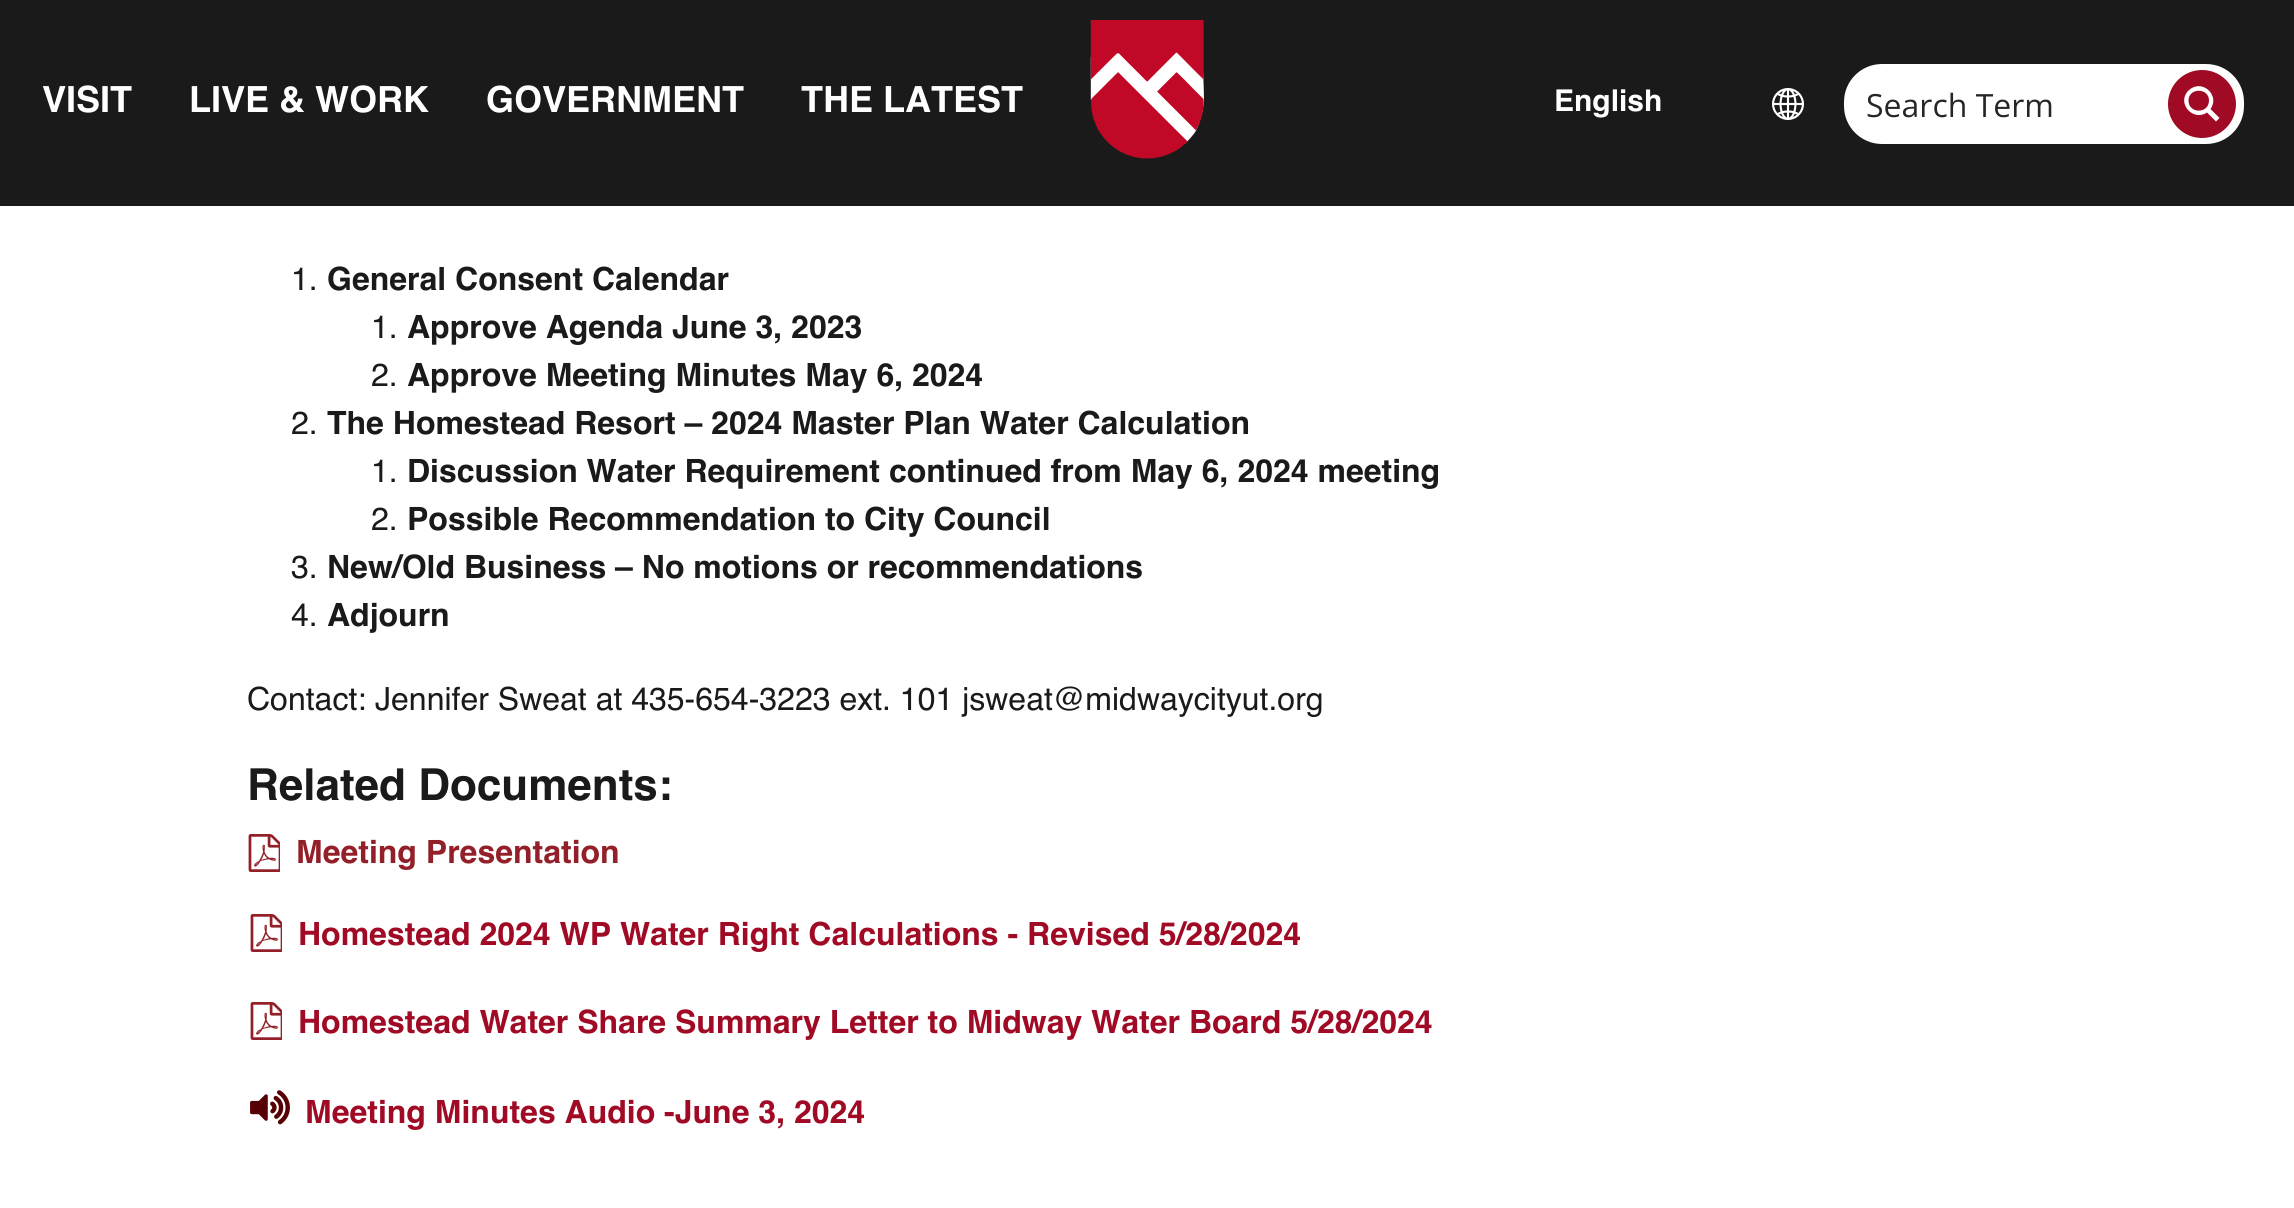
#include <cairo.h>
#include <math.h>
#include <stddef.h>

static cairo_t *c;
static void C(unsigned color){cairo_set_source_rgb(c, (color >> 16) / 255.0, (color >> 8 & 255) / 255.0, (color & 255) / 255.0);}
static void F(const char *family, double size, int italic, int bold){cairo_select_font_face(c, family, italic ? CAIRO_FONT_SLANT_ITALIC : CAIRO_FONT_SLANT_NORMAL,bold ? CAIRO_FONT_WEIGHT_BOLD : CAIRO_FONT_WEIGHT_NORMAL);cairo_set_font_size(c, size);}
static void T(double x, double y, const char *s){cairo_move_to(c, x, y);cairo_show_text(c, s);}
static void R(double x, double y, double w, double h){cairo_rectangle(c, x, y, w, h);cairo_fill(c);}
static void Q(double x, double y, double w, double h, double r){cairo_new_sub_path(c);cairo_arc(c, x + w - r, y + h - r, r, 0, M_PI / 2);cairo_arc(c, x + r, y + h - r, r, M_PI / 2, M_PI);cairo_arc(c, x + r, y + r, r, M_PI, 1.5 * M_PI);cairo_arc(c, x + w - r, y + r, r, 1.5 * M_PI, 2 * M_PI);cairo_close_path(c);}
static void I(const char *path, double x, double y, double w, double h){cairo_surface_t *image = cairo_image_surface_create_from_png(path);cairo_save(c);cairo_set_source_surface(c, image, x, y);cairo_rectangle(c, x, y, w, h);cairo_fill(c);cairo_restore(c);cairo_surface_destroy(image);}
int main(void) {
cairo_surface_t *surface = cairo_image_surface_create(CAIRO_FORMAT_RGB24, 2294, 1208);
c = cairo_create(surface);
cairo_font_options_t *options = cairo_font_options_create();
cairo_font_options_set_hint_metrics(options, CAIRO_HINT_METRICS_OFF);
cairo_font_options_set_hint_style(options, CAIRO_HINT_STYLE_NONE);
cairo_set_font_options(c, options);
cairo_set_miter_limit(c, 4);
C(0xffffff);
cairo_paint(c);
C(0x1a1a1a);
R(0,0,2294,206);
I("1.png",1090,20,114,139);
F("Helvetica",36,0,1);
C(0xffffff);
T(42,112,"VISIT");
T(189,112,"LIVE & WORK");
T(486,112,"GOVERNMENT");
T(801,112,"THE LATEST");
I("2.png",1772,88,32,32);
F("Helvetica",30,0,1);
T(1554,111,"English");
Q(1844,64,400,80,38);
cairo_fill(c);
F("Open Sans",32,0,0);
C(0x262626);
T(1866,117,"Search Term");
C(0xa00a24);
cairo_new_path(c);
cairo_arc(c,2202,104,34,0,2 * M_PI);
cairo_fill(c);
C(0xffffff);
cairo_new_path(c);
cairo_move_to(c,2219.5,118);
cairo_line_to(c,2210.5,109);
cairo_curve_to(c,2220.5,95,2201.5,78,2188.5,90.5);
cairo_curve_to(c,2176,103,2193,122,2207,112.5);
cairo_line_to(c,2216,121.5);
cairo_close_path(c);
cairo_move_to(c,2188.5,100.5);
cairo_curve_to(c,2188.5,87.5,2209,87.5,2209,100.5);
cairo_curve_to(c,2209,114,2188.5,114,2188.5,100.5);
cairo_close_path(c);
cairo_fill(c);
F("Helvetica",32,0,0);
C(0x1a1a1a);
T(291,290,"1.");
F("Helvetica",32,0,1);
T(327,290,"General Consent Calendar");
F("Helvetica",32,0,0);
T(371,338,"1.");
F("Helvetica",32,0,1);
T(407,338,"Approve Agenda June 3, 2023");
F("Helvetica",32,0,0);
T(371,386,"2.");
F("Helvetica",32,0,1);
T(407,386,"Approve Meeting Minutes May 6, 2024");
F("Helvetica",32,0,0);
T(291,434,"2.");
F("Helvetica",32,0,1);
T(327,434,"The Homestead Resort – 2024 Master Plan Water Calculation");
F("Helvetica",32,0,0);
T(371,482,"1.");
F("Helvetica",32,0,1);
T(407,482,"Discussion Water Requirement continued from May 6, 2024 meeting");
F("Helvetica",32,0,0);
T(371,530,"2.");
F("Helvetica",32,0,1);
T(407,530,"Possible Recommendation to City Council");
F("Helvetica",32,0,0);
T(291,578,"3.");
F("Helvetica",32,0,1);
T(327,578,"New/Old Business – No motions or recommendations");
F("Helvetica",32,0,0);
T(291,626,"4.");
F("Helvetica",32,0,1);
T(327,626,"Adjourn");
F("Helvetica",32,0,0);
T(247,710,"Contact: Jennifer Sweat at 435-654-3223 ext. 101 jsweat@midwaycityut.org");
F("Helvetica",44,0,1);
T(247,800,"Related Documents:");
I("3.png",248,834,32,38);
F("Helvetica",32,0,1);
C(0x932029);
T(296,863,"Meeting Presentation");
I("3.png",250,914,32,38);
C(0xa00a24);
T(298,945,"Homestead 2024 WP Water Right Calculations - Revised 5/28/2024");
I("3.png",250,1002,32,38);
T(298,1033,"Homestead Water Share Summary Letter to Midway Water Board 5/28/2024");
I("4.png",250,1090,40,35);
T(305,1123,"Meeting Minutes Audio -June 3, 2024");
cairo_surface_write_to_png(surface, "o.png");
cairo_font_options_destroy(options);
cairo_destroy(c);
cairo_surface_destroy(surface);
return 0;
}
